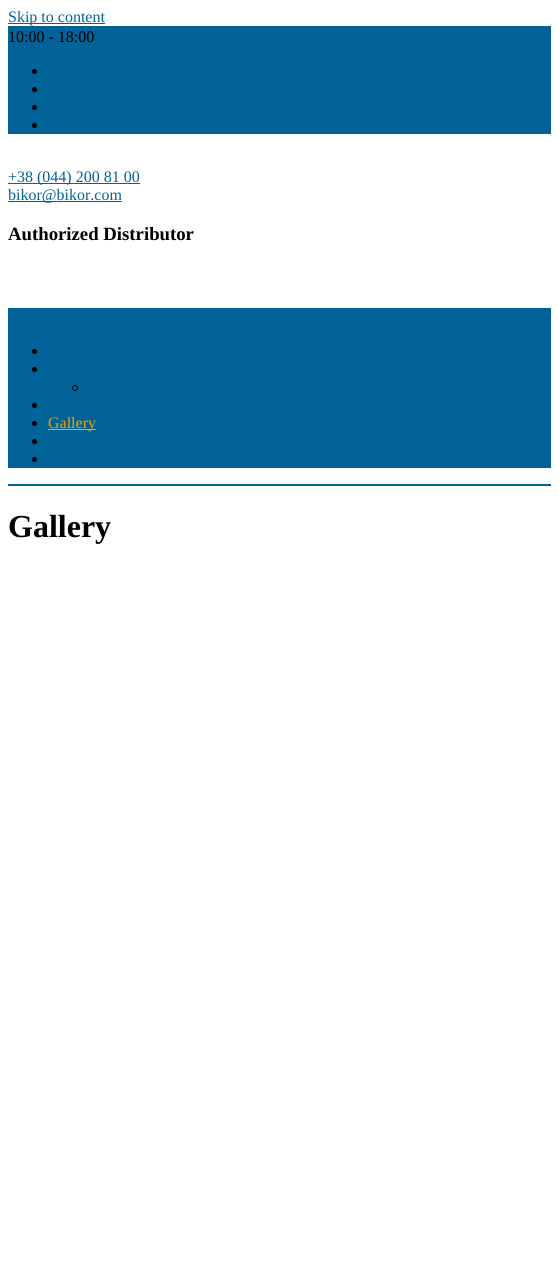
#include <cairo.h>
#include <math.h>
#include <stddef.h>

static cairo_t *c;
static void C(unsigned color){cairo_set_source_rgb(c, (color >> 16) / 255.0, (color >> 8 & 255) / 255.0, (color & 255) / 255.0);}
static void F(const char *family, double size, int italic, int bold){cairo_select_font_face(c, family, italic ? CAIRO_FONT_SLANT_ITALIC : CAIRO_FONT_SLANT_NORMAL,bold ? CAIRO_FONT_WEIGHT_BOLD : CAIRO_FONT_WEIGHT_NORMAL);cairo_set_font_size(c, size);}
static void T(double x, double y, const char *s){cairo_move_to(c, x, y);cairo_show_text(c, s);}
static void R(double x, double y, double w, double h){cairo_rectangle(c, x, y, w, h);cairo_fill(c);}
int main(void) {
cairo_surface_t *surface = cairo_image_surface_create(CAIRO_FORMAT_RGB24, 559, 1271);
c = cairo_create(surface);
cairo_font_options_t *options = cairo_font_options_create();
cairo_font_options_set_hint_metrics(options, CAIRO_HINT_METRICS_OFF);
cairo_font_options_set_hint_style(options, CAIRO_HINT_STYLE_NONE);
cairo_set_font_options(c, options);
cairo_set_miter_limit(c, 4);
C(0xffffff);
cairo_paint(c);
C(0x016297);
R(8,23,97,1);
F("Liberation Serif",16,0,0);
T(8,22,"Skip to content");
R(8,26,543,108);
R(8,484,543,2);
C(0x000000);
T(8,42,"10:00 - 18:00");
cairo_new_path(c);
cairo_arc(c,34.5,71.5,2.5,0,2 * M_PI);
cairo_fill(c);
cairo_arc(c,34.5,89.5,2.5,0,2 * M_PI);
cairo_fill(c);
cairo_arc(c,34.5,107.5,2.5,0,2 * M_PI);
cairo_fill(c);
cairo_arc(c,34.5,125.5,2.5,0,2 * M_PI);
cairo_fill(c);
C(0x016297);
R(8,183,132,1);
T(8,182,"+38 (044) 200 81 00");
R(8,201,114,1);
T(8,200,"bikor@bikor.com");
F("Liberation Serif",18.75,0,1);
C(0x000000);
T(8,240,"Authorized Distributor");
C(0x016297);
R(8,308,543,160);
C(0x000000);
cairo_new_path(c);
cairo_arc(c,34.5,351.5,2.5,0,2 * M_PI);
cairo_fill(c);
cairo_arc(c,34.5,369.5,2.5,0,2 * M_PI);
cairo_fill(c);
cairo_arc(c,75,388,2.5,0,2 * M_PI);
cairo_set_line_width(c,1);
cairo_stroke(c);
cairo_arc(c,34.5,405.5,2.5,0,2 * M_PI);
cairo_fill(c);
cairo_arc(c,34.5,423.5,2.5,0,2 * M_PI);
cairo_fill(c);
C(0xff9c00);
R(48,429,48,1);
F("Liberation Serif",16,0,0);
T(48,428,"Gallery");
C(0x000000);
cairo_new_path(c);
cairo_arc(c,34.5,441.5,2.5,0,2 * M_PI);
cairo_fill(c);
cairo_arc(c,34.5,459.5,2.5,0,2 * M_PI);
cairo_fill(c);
F("Liberation Serif",32,0,1);
T(8,537,"Gallery");
cairo_surface_write_to_png(surface, "o.png");
cairo_font_options_destroy(options);
cairo_destroy(c);
cairo_surface_destroy(surface);
return 0;
}
